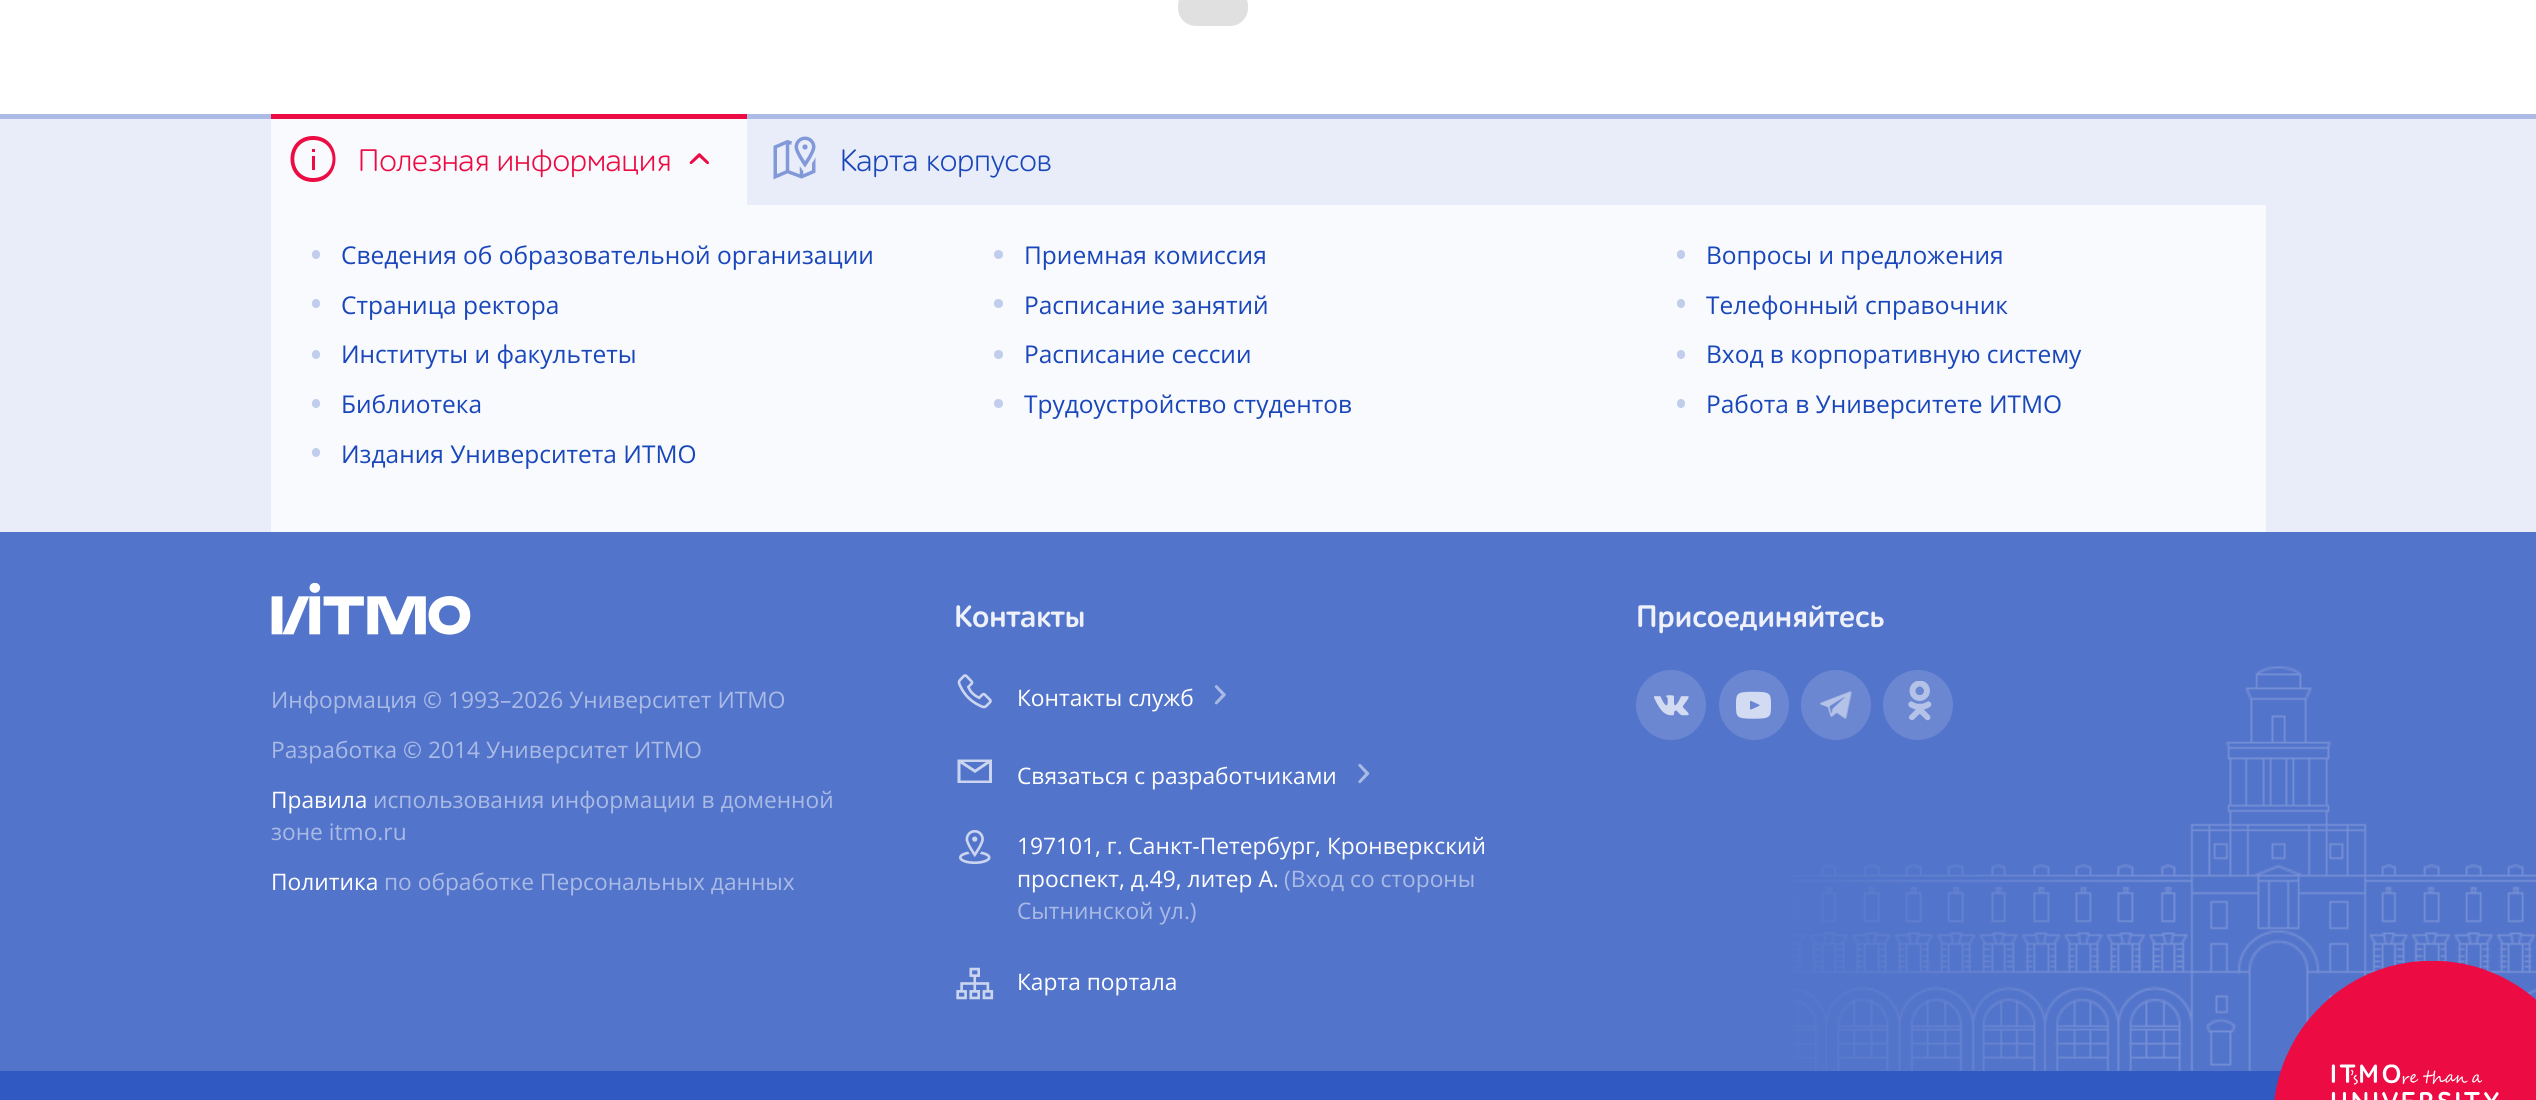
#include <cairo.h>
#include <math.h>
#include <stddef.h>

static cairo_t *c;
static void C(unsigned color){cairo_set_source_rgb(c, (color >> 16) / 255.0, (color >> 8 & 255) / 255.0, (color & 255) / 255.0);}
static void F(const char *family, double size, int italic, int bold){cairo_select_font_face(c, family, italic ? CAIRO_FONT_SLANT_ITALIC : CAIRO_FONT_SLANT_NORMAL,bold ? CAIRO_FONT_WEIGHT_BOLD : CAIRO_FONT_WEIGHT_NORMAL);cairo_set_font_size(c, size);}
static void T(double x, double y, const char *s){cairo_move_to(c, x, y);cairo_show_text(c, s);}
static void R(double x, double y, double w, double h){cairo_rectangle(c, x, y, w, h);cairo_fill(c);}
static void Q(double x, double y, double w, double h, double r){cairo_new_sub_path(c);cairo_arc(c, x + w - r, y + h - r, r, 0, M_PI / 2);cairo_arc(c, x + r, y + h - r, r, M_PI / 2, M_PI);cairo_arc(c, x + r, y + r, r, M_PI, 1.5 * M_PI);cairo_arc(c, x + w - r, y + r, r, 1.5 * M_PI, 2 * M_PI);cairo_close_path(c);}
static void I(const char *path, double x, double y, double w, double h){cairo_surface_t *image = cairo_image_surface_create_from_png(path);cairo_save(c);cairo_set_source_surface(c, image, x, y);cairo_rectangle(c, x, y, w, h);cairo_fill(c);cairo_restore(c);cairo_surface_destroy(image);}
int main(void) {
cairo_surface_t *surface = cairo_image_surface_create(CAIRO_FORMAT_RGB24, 2536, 1100);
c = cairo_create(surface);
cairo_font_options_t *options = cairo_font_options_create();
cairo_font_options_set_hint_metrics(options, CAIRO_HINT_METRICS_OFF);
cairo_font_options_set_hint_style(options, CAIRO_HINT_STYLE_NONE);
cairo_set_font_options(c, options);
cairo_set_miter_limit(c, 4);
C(0xffffff);
cairo_paint(c);
C(0xe0e0e0);
Q(1178,-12,70,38,18);
cairo_fill(c);
C(0xe9edf9);
R(0,119,2536,413);
C(0xf8fafd);
R(271,119,476,86);
C(0xabbbe6);
R(0,114,2536,5);
C(0xec0b43);
R(271,114,476,5);
cairo_new_path(c);
cairo_move_to(c,313,136);
cairo_curve_to(c,283,136,283,182,313,182);
cairo_curve_to(c,343,182,343,136,313,136);
cairo_close_path(c);
cairo_move_to(c,313,140);
cairo_curve_to(c,339,140,339,178,313,178);
cairo_curve_to(c,288,178,288,140,313,140);
cairo_close_path(c);
cairo_move_to(c,312,149);
cairo_line_to(c,312,152);
cairo_line_to(c,315,152);
cairo_line_to(c,315,149);
cairo_close_path(c);
cairo_move_to(c,312,156);
cairo_line_to(c,312,170);
cairo_line_to(c,315,170);
cairo_line_to(c,315,156);
cairo_close_path(c);
cairo_fill(c);
F("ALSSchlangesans",31.5,0,0);
T(358,171,"Полезная информация");
I("1.png",689,153,20,12);
I("2.png",773,136,43,44);
C(0x1946ba);
T(840,171,"Карта корпусов");
C(0xf8fafd);
R(271,205,1995,327);
C(0xc0cdec);
Q(312,250,8,9,4);
cairo_fill(c);
F("Open Sans",24.5,0,0);
C(0x1946ba);
T(341,264,"Сведения об образовательной организации");
C(0xc0cdec);
Q(312,299,8,9,4);
cairo_fill(c);
C(0x1946ba);
T(341,314,"Страница ректора");
C(0xc0cdec);
Q(312,350,8,9,4);
cairo_fill(c);
C(0x1946ba);
T(341,363,"Институты и факультеты");
C(0xc0cdec);
Q(312,399,8,9,4);
cairo_fill(c);
C(0x1946ba);
T(341,413,"Библиотека");
C(0xc0cdec);
Q(312,448,8,9,4);
cairo_fill(c);
C(0x1946ba);
T(341,463,"Издания Университета ИТМО");
C(0xc0cdec);
cairo_new_path(c);
cairo_arc(c,998.5,254.5,4.5,0,2 * M_PI);
cairo_fill(c);
C(0x1946ba);
T(1024,264,"Приемная комиссия");
C(0xc0cdec);
cairo_new_path(c);
cairo_arc(c,998.5,303.5,4.5,0,2 * M_PI);
cairo_fill(c);
C(0x1946ba);
T(1024,314,"Расписание занятий");
C(0xc0cdec);
cairo_new_path(c);
cairo_arc(c,998.5,354.5,4.5,0,2 * M_PI);
cairo_fill(c);
C(0x1946ba);
T(1024,363,"Расписание сессии");
C(0xc0cdec);
cairo_new_path(c);
cairo_arc(c,998.5,403.5,4.5,0,2 * M_PI);
cairo_fill(c);
C(0x1946ba);
T(1024,413,"Трудоустройство студентов");
C(0xc0cdec);
Q(1677,250,8,9,4);
cairo_fill(c);
C(0x1946ba);
T(1706,264,"Вопросы и предложения");
C(0xc0cdec);
Q(1677,299,8,9,4);
cairo_fill(c);
C(0x1946ba);
T(1706,314,"Телефонный справочник");
C(0xc0cdec);
Q(1677,350,8,9,4);
cairo_fill(c);
C(0x1946ba);
T(1706,363,"Вход в корпоративную систему");
C(0xc0cdec);
Q(1677,399,8,9,4);
cairo_fill(c);
C(0x1946ba);
T(1706,413,"Работа в Университете ИТМО");
C(0x5374cb);
R(0,532,2536,539);
I("3.png",1793,666,743,405);
F("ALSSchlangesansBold",31.5,0,1);
C(0xeef1fa);
T(954,627,"Контакты");
I("4.png",957,674,35,35);
F("Open Sans",22.75,0,0);
C(0xffffff);
T(1017,706,"Контакты служб");
I("5.png",1214,685,12,20);
C(0xcbd5ef);
cairo_new_path(c);
cairo_move_to(c,957.5,759.5);
cairo_line_to(c,957.5,783);
cairo_line_to(c,992,783);
cairo_line_to(c,992,759.5);
cairo_close_path(c);
cairo_move_to(c,963.5,762);
cairo_line_to(c,986,762);
cairo_line_to(c,975,769.5);
cairo_close_path(c);
cairo_move_to(c,960.5,763.5);
cairo_line_to(c,975,773);
cairo_line_to(c,989,763.5);
cairo_line_to(c,989,780.5);
cairo_line_to(c,960.5,780.5);
cairo_close_path(c);
cairo_fill(c);
C(0xffffff);
T(1017,784,"Связаться с разработчиками");
I("6.png",1358,763,12,21);
I("7.png",959,829,32,36);
T(1017,854,"197101, г. Санкт-Петербург, Кронверкский");
T(1017,887,"проспект, д.49, литер А.");
C(0xa9bae5);
T(1284,887,"(Вход со стороны");
T(1017,919,"Сытнинской ул.)");
I("8.png",956,967,38,33);
C(0xffffff);
T(1017,990,"Карта портала");
F("ALSSchlangesansBold",31.5,0,1);
C(0xeef1fa);
T(1636,627,"Присоединяйтесь");
C(0x6b87d2);
cairo_new_path(c);
cairo_arc(c,1671,705,35,0,2 * M_PI);
cairo_fill(c);
I("9.png",1654,695,35,21);
cairo_arc(c,1754,705,35,0,2 * M_PI);
cairo_fill(c);
I("10.png",1736,691,35,28);
cairo_arc(c,1836,705,35,0,2 * M_PI);
cairo_fill(c);
I("11.png",1820,691,32,28);
cairo_arc(c,1918,705,35,0,2 * M_PI);
cairo_fill(c);
I("12.png",1908,681,24,40);
I("13.png",271,583,200,52);
F("Open Sans",22.75,0,0);
C(0xa9bae5);
T(271,708,"Информация © 1993–2026 Университет ИТМО");
T(271,758,"Разработка © 2014 Университет ИТМО");
C(0xffffff);
T(271,808,"Правила");
C(0xa9bae5);
T(373,808,"использования информации в доменной");
T(271,840,"зоне itmo.ru");
C(0xffffff);
T(271,890,"Политика");
C(0xa9bae5);
T(384,890,"по обработке Персональных данных");
C(0x3059c1);
R(0,1071,2281,29);
I("14.png",2274,961,262,139);
cairo_surface_write_to_png(surface, "o.png");
cairo_font_options_destroy(options);
cairo_destroy(c);
cairo_surface_destroy(surface);
return 0;
}
